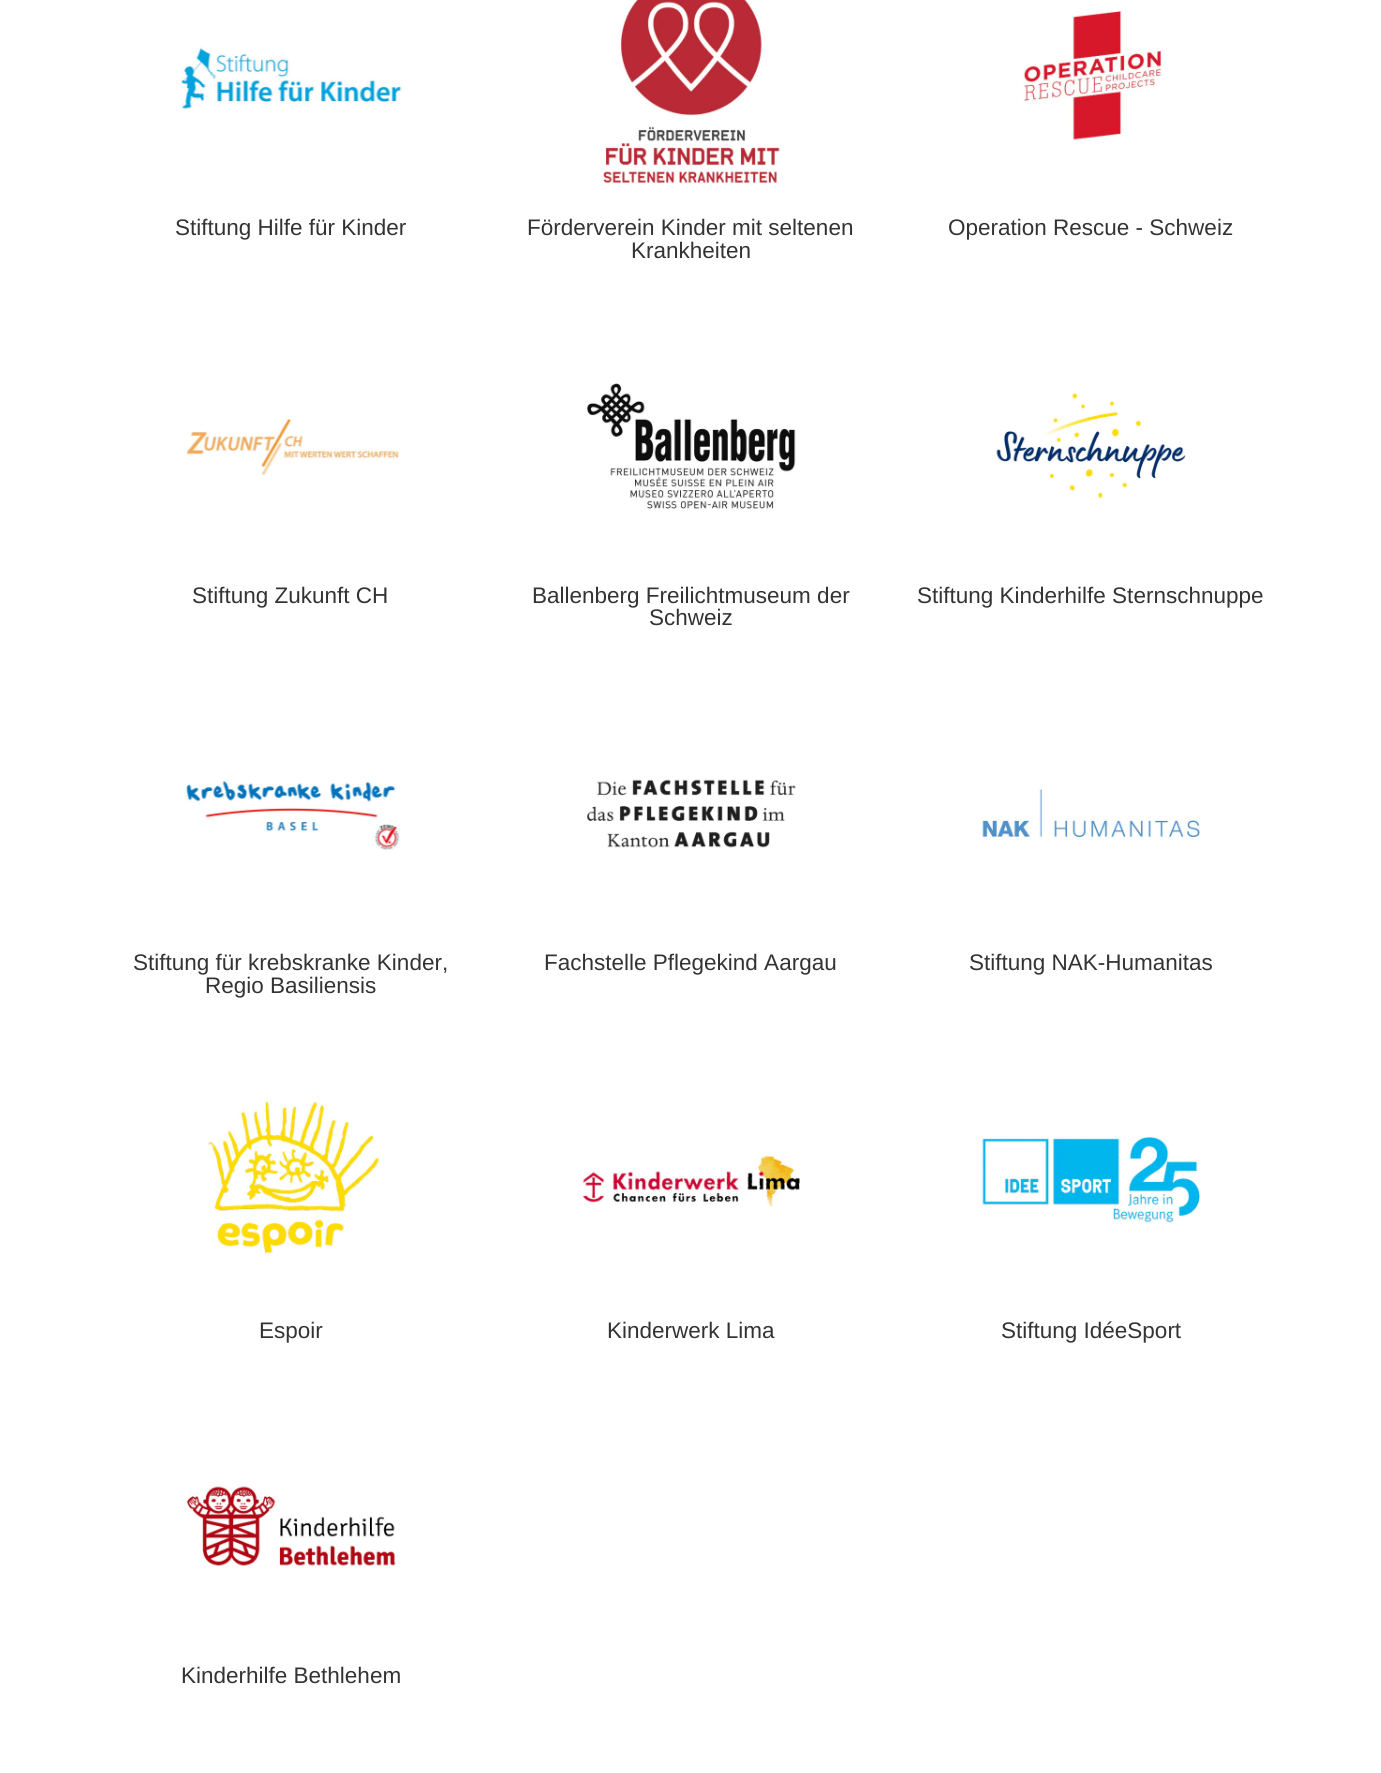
#include <cairo.h>
#include <math.h>
#include <stddef.h>

static cairo_t *c;
static void C(unsigned color){cairo_set_source_rgb(c, (color >> 16) / 255.0, (color >> 8 & 255) / 255.0, (color & 255) / 255.0);}
static void F(const char *family, double size, int italic, int bold){cairo_select_font_face(c, family, italic ? CAIRO_FONT_SLANT_ITALIC : CAIRO_FONT_SLANT_NORMAL,bold ? CAIRO_FONT_WEIGHT_BOLD : CAIRO_FONT_WEIGHT_NORMAL);cairo_set_font_size(c, size);}
static void T(double x, double y, const char *s){cairo_move_to(c, x, y);cairo_show_text(c, s);}
static void I(const char *path, double x, double y, double w, double h){cairo_surface_t *image = cairo_image_surface_create_from_png(path);cairo_save(c);cairo_set_source_surface(c, image, x, y);cairo_rectangle(c, x, y, w, h);cairo_fill(c);cairo_restore(c);cairo_surface_destroy(image);}
int main(void) {
cairo_surface_t *surface = cairo_image_surface_create(CAIRO_FORMAT_RGB24, 1381, 1773);
c = cairo_create(surface);
cairo_font_options_t *options = cairo_font_options_create();
cairo_font_options_set_hint_metrics(options, CAIRO_HINT_METRICS_OFF);
cairo_font_options_set_hint_style(options, CAIRO_HINT_STYLE_NONE);
cairo_set_font_options(c, options);
cairo_set_miter_limit(c, 4);
C(0xffffff);
cairo_paint(c);
I("1.png",179,46,223,64);
F("Liberation Sans",22.5,0,0);
C(0x333333);
T(175,235,"Stiftung Hilfe für Kinder");
I("2.png",601,0,180,184);
T(527,235,"Förderverein Kinder mit seltenen");
T(631,258,"Krankheiten");
I("3.png",1023,10,139,132);
T(948,235,"Operation Rescue - Schweiz");
I("4.png",186,418,214,58);
T(192,603,"Stiftung Zukunft CH");
I("5.png",587,383,209,127);
T(532,603,"Ballenberg Freilichtmuseum der");
T(649,625,"Schweiz");
I("6.png",996,392,190,107);
T(917,603,"Stiftung Kinderhilfe Sternschnuppe");
I("7.png",186,780,214,70);
T(133,970,"Stiftung für krebskranke Kinder,");
T(205,993,"Regio Basiliensis");
I("8.png",587,779,209,69);
T(544,970,"Fachstelle Pflegekind Aargau");
I("9.png",982,788,218,52);
T(969,970,"Stiftung NAK-Humanitas");
I("10.png",208,1101,173,153);
T(259,1338,"Espoir");
I("11.png",582,1155,218,52);
T(607,1338,"Kinderwerk Lima");
I("12.png",982,1136,219,87);
T(1001,1338,"Stiftung IdéeSport");
I("13.png",186,1486,210,81);
T(181,1683,"Kinderhilfe Bethlehem");
cairo_surface_write_to_png(surface, "o.png");
cairo_font_options_destroy(options);
cairo_destroy(c);
cairo_surface_destroy(surface);
return 0;
}
